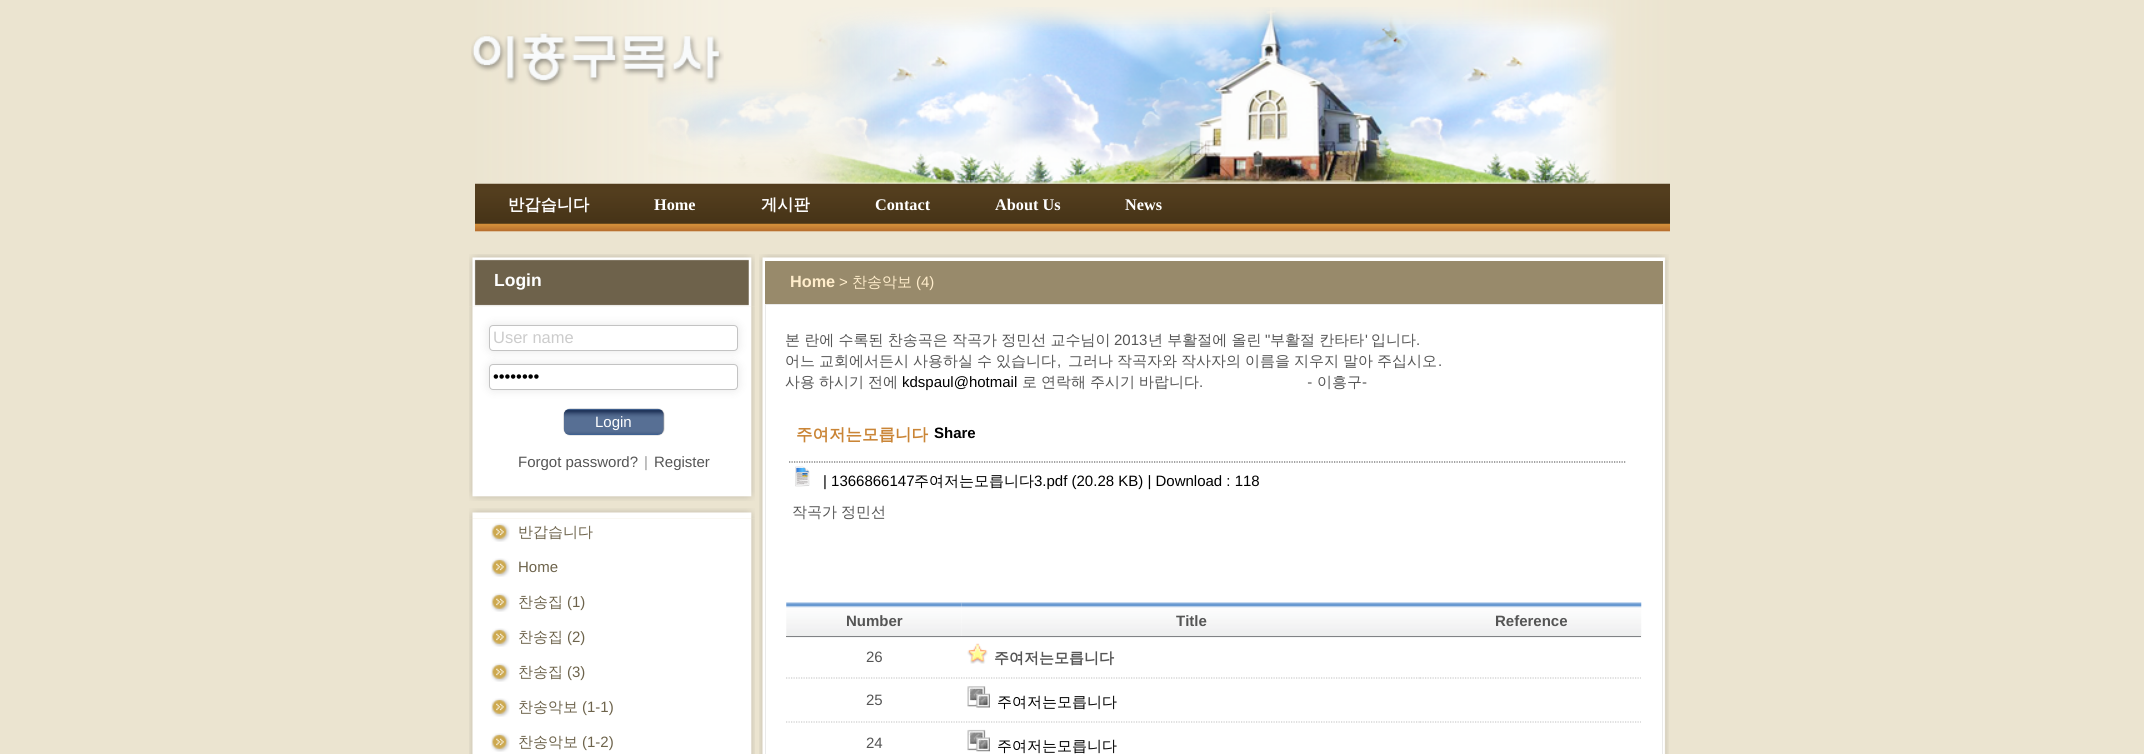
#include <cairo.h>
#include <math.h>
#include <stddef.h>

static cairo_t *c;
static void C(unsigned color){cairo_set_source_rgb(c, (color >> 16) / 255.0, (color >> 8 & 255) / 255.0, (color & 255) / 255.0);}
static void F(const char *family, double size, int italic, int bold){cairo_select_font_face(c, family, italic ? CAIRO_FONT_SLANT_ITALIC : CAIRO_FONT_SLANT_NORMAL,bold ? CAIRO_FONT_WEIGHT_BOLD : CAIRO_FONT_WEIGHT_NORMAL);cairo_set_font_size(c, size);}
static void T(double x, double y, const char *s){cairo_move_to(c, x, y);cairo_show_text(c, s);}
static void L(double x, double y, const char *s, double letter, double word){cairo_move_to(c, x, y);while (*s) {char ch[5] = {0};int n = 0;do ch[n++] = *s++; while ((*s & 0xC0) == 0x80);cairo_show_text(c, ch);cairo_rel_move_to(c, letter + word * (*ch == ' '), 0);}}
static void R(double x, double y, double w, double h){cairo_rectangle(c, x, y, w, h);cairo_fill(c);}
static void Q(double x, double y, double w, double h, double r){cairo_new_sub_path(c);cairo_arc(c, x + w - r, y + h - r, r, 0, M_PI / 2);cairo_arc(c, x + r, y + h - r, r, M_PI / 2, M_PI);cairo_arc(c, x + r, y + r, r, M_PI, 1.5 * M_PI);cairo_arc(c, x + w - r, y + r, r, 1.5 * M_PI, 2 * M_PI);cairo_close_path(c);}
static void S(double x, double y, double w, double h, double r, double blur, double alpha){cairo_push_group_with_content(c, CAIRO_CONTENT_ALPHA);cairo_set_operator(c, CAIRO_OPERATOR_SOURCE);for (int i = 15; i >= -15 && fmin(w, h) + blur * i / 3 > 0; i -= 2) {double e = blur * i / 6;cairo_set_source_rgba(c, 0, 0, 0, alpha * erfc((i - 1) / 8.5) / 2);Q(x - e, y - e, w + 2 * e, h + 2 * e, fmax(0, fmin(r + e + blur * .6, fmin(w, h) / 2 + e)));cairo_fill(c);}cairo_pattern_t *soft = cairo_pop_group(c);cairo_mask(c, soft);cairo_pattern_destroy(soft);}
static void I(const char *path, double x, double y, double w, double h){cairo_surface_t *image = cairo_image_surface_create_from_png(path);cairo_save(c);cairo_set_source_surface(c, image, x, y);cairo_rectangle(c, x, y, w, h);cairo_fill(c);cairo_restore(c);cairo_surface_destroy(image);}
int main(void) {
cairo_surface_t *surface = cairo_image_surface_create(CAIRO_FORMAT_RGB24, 2144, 754);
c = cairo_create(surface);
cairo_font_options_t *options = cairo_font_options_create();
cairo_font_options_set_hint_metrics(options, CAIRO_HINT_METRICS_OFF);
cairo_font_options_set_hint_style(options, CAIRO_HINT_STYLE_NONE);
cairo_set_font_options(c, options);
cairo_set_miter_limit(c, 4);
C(0xebe4d0);
cairo_paint(c);
I("1.png",475,0,1195,232);
I("2.png",648,7,968,177);
I("3.png",471,32,253,55);
F("WenQuanYi Zen Hei",16.25,0,1);
C(0xffffff);
T(508,210,"반갑습니다");
F("Liberation Serif",16.25,0,1);
T(654,210,"Home");
F("WenQuanYi Zen Hei",16.25,0,1);
T(761,210,"게시판");
F("Liberation Serif",16.25,0,1);
T(875,210,"Contact");
T(995,210,"About Us");
T(1125,210,"News");
I("4.png",469,254,286,53);
F("Liberation Sans",17.5,0,1);
T(494,286,"Login");
I("5.png",469,306,286,184);
C(0x000000);
S(489,325,249,26,4,5,.1);
C(0xffffff);
Q(489.5,325.5,248,25,3.5);
cairo_fill_preserve(c);
C(0xc3c3c3);
cairo_set_line_width(c,1);
cairo_stroke(c);
F("Liberation Sans",16.5,0,0);
C(0xcccccc);
T(493,343,"User name");
C(0x000000);
S(489,364,249,26,4,5,.1);
C(0xffffff);
Q(489.5,364.5,248,25,3.5);
cairo_fill_preserve(c);
C(0xc3c3c3);
cairo_stroke(c);
C(0x000000);
T(493,382,"••••••••");
C(0x000000);
S(564,409,100,26,6,.5,.4);
I("6.png",563,408,101,27);
F("Liberation Sans",15,0,0);
C(0xffffff);
T(595,427,"Login");
C(0x555555);
T(518,467,"Forgot password?");
C(0x999999);
T(644,467,"|");
C(0x555555);
T(654,467,"Register");
I("7.png",469,490,286,11);
I("8.png",469,508,286,11);
I("9.png",469,519,286,235);
I("10.png",491,523,19,19);
F("WenQuanYi Zen Hei Medium",15,0,0);
C(0x6d634b);
T(518,537,"반갑습니다");
I("10.png",491,558,19,19);
F("Liberation Sans",15,0,0);
T(518,572,"Home");
I("10.png",491,593,19,19);
F("WenQuanYi Zen Hei Medium",15,0,0);
T(518,607,"찬송집");
F("Liberation Sans",15,0,0);
T(567,607,"(1)");
I("10.png",491,628,19,19);
F("WenQuanYi Zen Hei Medium",15,0,0);
T(518,642,"찬송집");
F("Liberation Sans",15,0,0);
T(567,642,"(2)");
I("10.png",491,663,19,19);
F("WenQuanYi Zen Hei Medium",15,0,0);
T(518,677,"찬송집");
F("Liberation Sans",15,0,0);
T(567,677,"(3)");
I("10.png",491,698,19,19);
F("WenQuanYi Zen Hei Medium",15,0,0);
T(518,712,"찬송악보");
F("Liberation Sans",15,0,0);
T(582,712,"(1-1)");
I("10.png",491,733,19,19);
F("WenQuanYi Zen Hei Medium",15,0,0);
T(518,747,"찬송악보");
F("Liberation Sans",15,0,0);
T(582,747,"(1-2)");
I("11.png",759,254,910,6);
I("12.png",759,260,910,494);
C(0x988a6b);
R(765,261,898,43);
F("Liberation Sans",16.25,0,1);
C(0xffedcb);
T(790,287,"Home");
F("Liberation Sans",15,0,0);
T(839,287,">");
F("WenQuanYi Zen Hei Medium",15,0,0);
T(852,287,"찬송악보");
F("Liberation Sans",15,0,0);
T(916,287,"(4)");
cairo_rectangle(c,765.5,304.5,897,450);
C(0xeaeaea);
cairo_stroke(c);
F("WenQuanYi Zen Hei Medium",15,0,0);
C(0x555555);
L(785,345,"본 란에 수록된 찬송곡은 작곡가 정민선 교수님이",0,-.25);
F("Liberation Sans",15,0,0);
T(1114,345,"2013");
F("WenQuanYi Zen Hei Medium",15,0,0);
L(1148,345,"년 부활절에 올린",0,-.25);
F("Liberation Sans",15,0,0);
T(1265,345,"\"");
F("WenQuanYi Zen Hei Medium",15,0,0);
L(1270,345,"부활절 칸타타",0,-.25);
F("Liberation Sans",15,0,0);
T(1365,345,"'");
F("WenQuanYi Zen Hei Medium",15,0,0);
T(1371,345,"입니다");
F("Liberation Sans",15,0,0);
T(1416,345,".");
F("WenQuanYi Zen Hei Medium",15,0,0);
L(785,366,"어느 교회에서든시 사용하실 수 있습니다",0,-.5);
F("Liberation Sans",15,0,0);
T(1057,366,",");
F("WenQuanYi Zen Hei Medium",15,0,0);
T(1068,366,"그러나");
L(1117,366,"작곡자와 작사자의 이름을 지우지 말아 주십시오",0,-.5);
F("Liberation Sans",15,0,0);
T(1438,366,".");
F("WenQuanYi Zen Hei Medium",15,0,0);
L(785,387,"사용 하시기 전에",0,-.5);
F("Liberation Sans",15,0,0);
C(0x000000);
T(902,387,"kdspaul@hotmail");
F("WenQuanYi Zen Hei Medium",15,0,0);
C(0x555555);
T(1022,387,"로");
T(1041,387,"연락해");
T(1090,387,"주시기");
T(1139,387,"바랍니다");
F("Liberation Sans",15,0,0);
T(1199,387,".                         -");
F("WenQuanYi Zen Hei Medium",15,0,0);
T(1317,387,"이흥구");
F("Liberation Sans",15,0,0);
T(1362,387,"-");
F("WenQuanYi Zen Hei",16.5,0,1);
C(0xca8536);
T(796,440,"주여저는모릅니다");
F("Liberation Sans",15,0,1);
C(0x000000);
T(934,438,"Share");
cairo_new_path(c);
cairo_move_to(c,789,462);
cairo_line_to(c,1626,462);
C(0x666666);
cairo_set_line_width(c,1.2);
cairo_set_dash(c,(double[]){1.25,1.25},2,0);
cairo_stroke(c);
I("13.png",795,466,15,21);
F("Liberation Sans",15,0,0);
C(0x000000);
T(823,486,"| 1366866147");
F("WenQuanYi Zen Hei Medium",15,0,0);
T(914,486,"주여저는모릅니다");
F("Liberation Sans",15,0,0);
T(1034,486,"3.pdf (20.28 KB) | Download : 118");
F("WenQuanYi Zen Hei Medium",15,0,0);
C(0x555555);
L(792,517,"작곡가 정민선",0,-.5);
I("14.png",786,602,176,36);
C(0x808285);
R(786,636,175,1);
F("Liberation Sans",15,0,1);
C(0x555555);
T(846,626,"Number");
I("15.png",961,602,459,36);
C(0x808285);
R(961,636,459,1);
C(0x555555);
T(1176,626,"Title");
I("16.png",1420,602,222,36);
C(0x808285);
R(1420,636,221,1);
C(0x555555);
T(1495,626,"Reference");
cairo_new_path(c);
cairo_move_to(c,786,678);
cairo_line_to(c,961,678);
C(0xcccccc);
cairo_stroke(c);
F("Liberation Sans",15,0,0);
C(0x555555);
T(866,662,"26");
cairo_new_path(c);
cairo_move_to(c,961,678);
cairo_line_to(c,1420,678);
C(0xcccccc);
cairo_stroke(c);
I("17.png",967,643,21,21);
F("WenQuanYi Zen Hei",15,0,1);
C(0x555555);
T(994,663,"주여저는모릅니다");
cairo_new_path(c);
cairo_move_to(c,1420,678);
cairo_line_to(c,1641,678);
C(0xcccccc);
cairo_stroke(c);
cairo_new_path(c);
cairo_move_to(c,786,722);
cairo_line_to(c,961,722);
cairo_stroke(c);
F("Liberation Sans",15,0,0);
C(0x555555);
T(866,705,"25");
cairo_new_path(c);
cairo_move_to(c,961,722);
cairo_line_to(c,1420,722);
C(0xcccccc);
cairo_stroke(c);
I("18.png",967,686,23,22);
F("WenQuanYi Zen Hei Medium",15,0,0);
C(0x000000);
T(997,707,"주여저는모릅니다");
cairo_new_path(c);
cairo_move_to(c,1420,722);
cairo_line_to(c,1641,722);
C(0xcccccc);
cairo_stroke(c);
F("Liberation Sans",15,0,0);
C(0x555555);
T(866,748,"24");
I("19.png",967,729,23,23);
F("WenQuanYi Zen Hei Medium",15,0,0);
C(0x000000);
T(997,751,"주여저는모릅니다");
cairo_surface_write_to_png(surface, "o.png");
cairo_font_options_destroy(options);
cairo_destroy(c);
cairo_surface_destroy(surface);
return 0;
}
